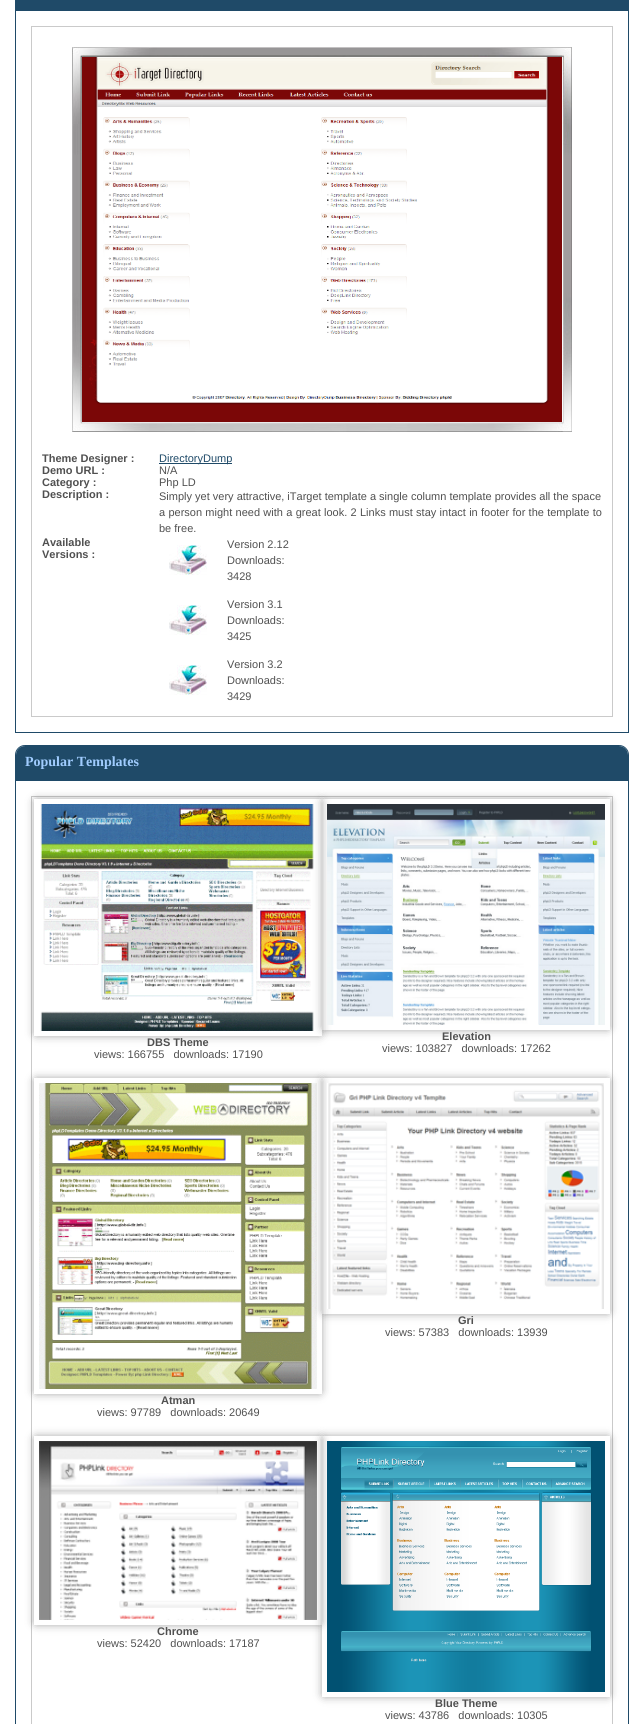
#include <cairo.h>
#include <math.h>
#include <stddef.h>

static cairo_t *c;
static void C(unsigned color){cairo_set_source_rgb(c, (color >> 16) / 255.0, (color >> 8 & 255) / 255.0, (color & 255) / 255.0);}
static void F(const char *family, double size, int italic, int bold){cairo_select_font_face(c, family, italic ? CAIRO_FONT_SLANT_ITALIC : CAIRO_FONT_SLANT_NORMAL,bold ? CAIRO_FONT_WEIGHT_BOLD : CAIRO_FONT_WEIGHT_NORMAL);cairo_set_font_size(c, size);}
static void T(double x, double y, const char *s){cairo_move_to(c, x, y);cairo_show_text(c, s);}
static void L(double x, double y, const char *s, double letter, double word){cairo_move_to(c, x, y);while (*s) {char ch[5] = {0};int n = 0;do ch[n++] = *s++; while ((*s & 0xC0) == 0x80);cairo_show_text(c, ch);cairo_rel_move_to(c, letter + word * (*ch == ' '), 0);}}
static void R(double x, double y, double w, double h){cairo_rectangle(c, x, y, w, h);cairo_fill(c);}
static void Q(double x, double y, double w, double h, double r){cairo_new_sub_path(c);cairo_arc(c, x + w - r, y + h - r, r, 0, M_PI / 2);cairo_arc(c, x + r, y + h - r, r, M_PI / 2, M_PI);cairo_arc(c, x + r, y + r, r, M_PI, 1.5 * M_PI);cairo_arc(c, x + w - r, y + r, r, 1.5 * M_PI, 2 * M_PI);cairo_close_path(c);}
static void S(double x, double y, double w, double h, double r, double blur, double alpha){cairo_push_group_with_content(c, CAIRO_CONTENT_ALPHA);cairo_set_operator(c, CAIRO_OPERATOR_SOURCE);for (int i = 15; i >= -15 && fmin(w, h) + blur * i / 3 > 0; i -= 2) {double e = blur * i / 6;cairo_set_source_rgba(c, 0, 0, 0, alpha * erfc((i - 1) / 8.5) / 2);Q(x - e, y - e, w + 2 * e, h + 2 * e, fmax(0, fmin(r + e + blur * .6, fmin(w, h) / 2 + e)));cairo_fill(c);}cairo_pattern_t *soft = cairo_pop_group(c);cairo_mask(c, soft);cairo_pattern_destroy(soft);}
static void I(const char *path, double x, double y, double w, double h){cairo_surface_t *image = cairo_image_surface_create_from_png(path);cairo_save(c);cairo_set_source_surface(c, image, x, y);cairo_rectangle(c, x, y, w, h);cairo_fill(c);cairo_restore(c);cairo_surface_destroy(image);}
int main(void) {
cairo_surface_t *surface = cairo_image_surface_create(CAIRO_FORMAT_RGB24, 644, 1724);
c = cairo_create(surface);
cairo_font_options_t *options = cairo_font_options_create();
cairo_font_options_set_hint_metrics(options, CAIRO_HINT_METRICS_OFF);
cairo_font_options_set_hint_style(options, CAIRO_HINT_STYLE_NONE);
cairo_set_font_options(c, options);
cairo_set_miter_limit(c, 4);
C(0xffffff);
cairo_paint(c);
C(0x1f4a68);
R(15,0,614,10);
cairo_rectangle(c,15.5,10.5,613,722);
cairo_set_line_width(c,1);
cairo_stroke(c);
cairo_rectangle(c,31.5,26.5,581,690);
C(0xcacaca);
cairo_stroke(c);
I("1.png",72,47,500,385);
F("Liberation Sans",11,0,1);
C(0x505050);
T(42,462,"Theme Designer :");
C(0x1f4a68);
R(159,463,73,1);
F("Liberation Sans",11,0,0);
T(159,462,"DirectoryDump");
F("Liberation Sans",11,0,1);
C(0x505050);
T(42,474,"Demo URL :");
F("Liberation Sans",11,0,0);
T(159,474,"N/A");
F("Liberation Sans",11,0,1);
T(42,486,"Category :");
F("Liberation Sans",11,0,0);
T(159,486,"Php LD");
F("Liberation Sans",11,0,1);
T(42,498,"Description :");
F("Liberation Sans",11,0,0);
T(159,500,"Simply yet very attractive, iTarget template a single column template provides all the space");
L(159,516,"a person might need with a great look. 2 Links must stay intact in footer for the template to",0,.25);
T(159,532,"be free.");
F("Liberation Sans",11,0,1);
T(42,546,"Available");
T(42,558,"Versions :");
I("2.png",169,545,38,30);
F("Liberation Sans",11,0,0);
T(227,548,"Version 2.12");
T(227,564,"Downloads:");
T(227,580,"3428");
I("2.png",169,605,38,30);
T(227,608,"Version 3.1");
T(227,624,"Downloads:");
T(227,640,"3425");
I("2.png",169,665,38,30);
T(227,668,"Version 3.2");
T(227,684,"Downloads:");
T(227,700,"3429");
C(0x1f4a68);
R(15,745,614,35);
I("3.png",15,745,10,10);
I("4.png",619,745,10,10);
F("Liberation Serif",14,0,1);
C(0xa0ccfe);
T(25,766,"Popular Templates");
cairo_rectangle(c,15.5,780.5,613,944);
C(0x1f4a68);
cairo_stroke(c);
cairo_rectangle(c,31.5,796.5,581,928);
C(0xcacaca);
cairo_stroke(c);
cairo_save(c);
cairo_set_fill_rule(c,CAIRO_FILL_RULE_EVEN_ODD);
cairo_new_path(c);
cairo_move_to(c,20,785);
cairo_line_to(c,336,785);
cairo_line_to(c,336,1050);
cairo_line_to(c,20,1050);
cairo_close_path(c);
cairo_move_to(c,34,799);
cairo_line_to(c,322,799);
cairo_line_to(c,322,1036);
cairo_line_to(c,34,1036);
cairo_close_path(c);
cairo_clip(c);
C(0x000000);
S(36,801,284,233,0,5,.5);
cairo_restore(c);
I("5.png",40,804,274,227);
F("Liberation Sans",11,0,1);
C(0x505050);
T(147,1046,"DBS Theme");
F("Liberation Sans",11,0,0);
T(94,1058,"views: 166755   downloads: 17190");
cairo_save(c);
cairo_set_fill_rule(c,CAIRO_FILL_RULE_EVEN_ODD);
cairo_new_path(c);
cairo_move_to(c,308,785);
cairo_line_to(c,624,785);
cairo_line_to(c,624,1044);
cairo_line_to(c,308,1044);
cairo_close_path(c);
cairo_move_to(c,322,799);
cairo_line_to(c,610,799);
cairo_line_to(c,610,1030);
cairo_line_to(c,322,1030);
cairo_close_path(c);
cairo_clip(c);
C(0x000000);
S(324,801,284,227,0,5,.5);
cairo_restore(c);
I("6.png",327,804,278,221);
F("Liberation Sans",11,0,1);
T(442,1040,"Elevation");
F("Liberation Sans",11,0,0);
T(382,1052,"views: 103827   downloads: 17262");
cairo_save(c);
cairo_set_fill_rule(c,CAIRO_FILL_RULE_EVEN_ODD);
cairo_new_path(c);
cairo_move_to(c,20,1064);
cairo_line_to(c,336,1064);
cairo_line_to(c,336,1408);
cairo_line_to(c,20,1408);
cairo_close_path(c);
cairo_move_to(c,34,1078);
cairo_line_to(c,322,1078);
cairo_line_to(c,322,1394);
cairo_line_to(c,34,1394);
cairo_close_path(c);
cairo_clip(c);
C(0x000000);
S(36,1080,284,312,0,5,.5);
cairo_restore(c);
I("8.png",39,1083,278,306);
cairo_save(c);
cairo_set_fill_rule(c,CAIRO_FILL_RULE_EVEN_ODD);
cairo_new_path(c);
cairo_move_to(c,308,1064);
cairo_line_to(c,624,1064);
cairo_line_to(c,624,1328);
cairo_line_to(c,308,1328);
cairo_close_path(c);
cairo_move_to(c,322,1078);
cairo_line_to(c,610,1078);
cairo_line_to(c,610,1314);
cairo_line_to(c,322,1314);
cairo_close_path(c);
cairo_clip(c);
C(0x000000);
S(324,1080,284,232,0,5,.5);
cairo_restore(c);
I("7.png",327,1083,277,226);
F("Liberation Sans",11,0,1);
T(458,1324,"Gri");
F("Liberation Sans",11,0,0);
T(385,1336,"views: 57383   downloads: 13939");
F("Liberation Sans",11,0,1);
T(161,1404,"Atman");
F("Liberation Sans",11,0,0);
T(97,1416,"views: 97789   downloads: 20649");
cairo_save(c);
cairo_set_fill_rule(c,CAIRO_FILL_RULE_EVEN_ODD);
cairo_new_path(c);
cairo_move_to(c,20,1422);
cairo_line_to(c,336,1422);
cairo_line_to(c,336,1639);
cairo_line_to(c,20,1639);
cairo_close_path(c);
cairo_move_to(c,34,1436);
cairo_line_to(c,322,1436);
cairo_line_to(c,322,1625);
cairo_line_to(c,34,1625);
cairo_close_path(c);
cairo_clip(c);
C(0x000000);
S(36,1438,284,185,0,5,.5);
cairo_restore(c);
I("9.png",39,1441,278,179);
F("Liberation Sans",11,0,1);
T(157,1635,"Chrome");
F("Liberation Sans",11,0,0);
T(97,1647,"views: 52420   downloads: 17187");
cairo_save(c);
cairo_set_fill_rule(c,CAIRO_FILL_RULE_EVEN_ODD);
cairo_new_path(c);
cairo_move_to(c,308,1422);
cairo_line_to(c,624,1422);
cairo_line_to(c,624,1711);
cairo_line_to(c,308,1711);
cairo_close_path(c);
cairo_move_to(c,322,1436);
cairo_line_to(c,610,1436);
cairo_line_to(c,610,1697);
cairo_line_to(c,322,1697);
cairo_close_path(c);
cairo_clip(c);
C(0x000000);
S(324,1438,284,257,0,5,.5);
cairo_restore(c);
I("10.png",327,1441,278,251);
F("Liberation Sans",11,0,1);
T(435,1707,"Blue Theme");
F("Liberation Sans",11,0,0);
T(385,1719,"views: 43786   downloads: 10305");
cairo_surface_write_to_png(surface, "o.png");
cairo_font_options_destroy(options);
cairo_destroy(c);
cairo_surface_destroy(surface);
return 0;
}
